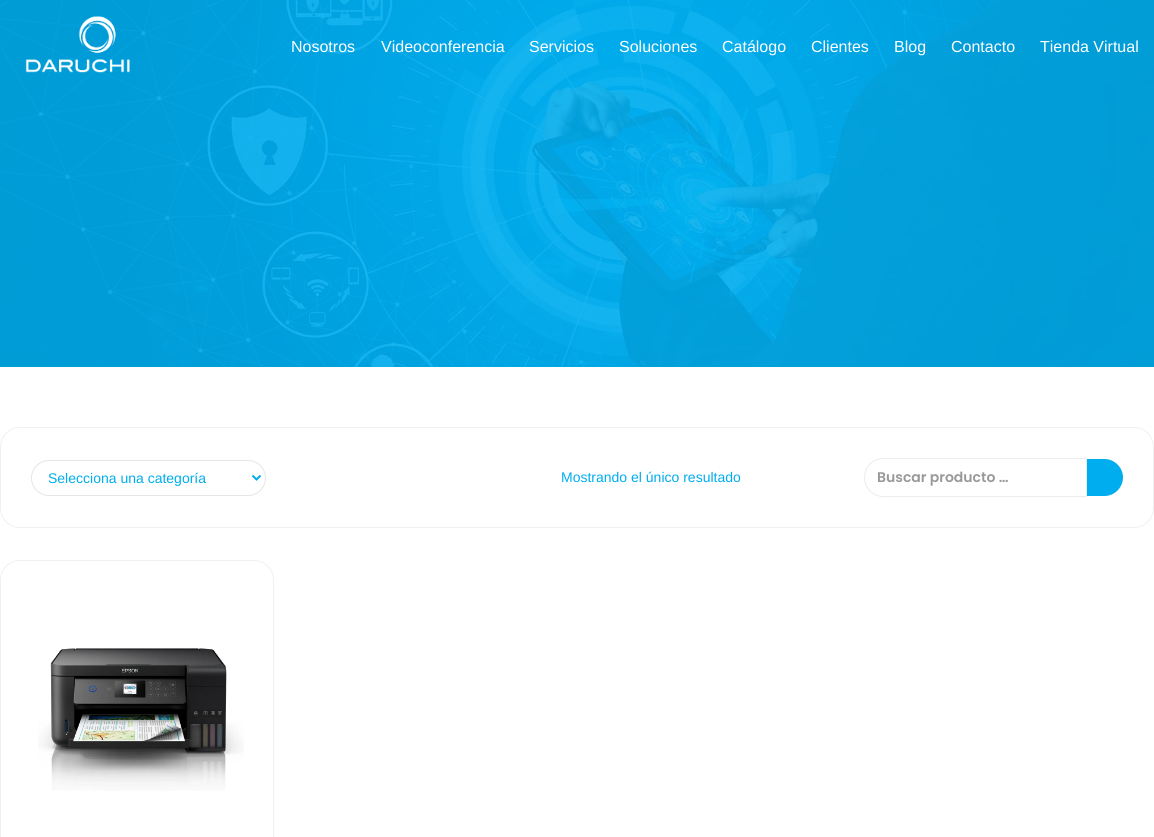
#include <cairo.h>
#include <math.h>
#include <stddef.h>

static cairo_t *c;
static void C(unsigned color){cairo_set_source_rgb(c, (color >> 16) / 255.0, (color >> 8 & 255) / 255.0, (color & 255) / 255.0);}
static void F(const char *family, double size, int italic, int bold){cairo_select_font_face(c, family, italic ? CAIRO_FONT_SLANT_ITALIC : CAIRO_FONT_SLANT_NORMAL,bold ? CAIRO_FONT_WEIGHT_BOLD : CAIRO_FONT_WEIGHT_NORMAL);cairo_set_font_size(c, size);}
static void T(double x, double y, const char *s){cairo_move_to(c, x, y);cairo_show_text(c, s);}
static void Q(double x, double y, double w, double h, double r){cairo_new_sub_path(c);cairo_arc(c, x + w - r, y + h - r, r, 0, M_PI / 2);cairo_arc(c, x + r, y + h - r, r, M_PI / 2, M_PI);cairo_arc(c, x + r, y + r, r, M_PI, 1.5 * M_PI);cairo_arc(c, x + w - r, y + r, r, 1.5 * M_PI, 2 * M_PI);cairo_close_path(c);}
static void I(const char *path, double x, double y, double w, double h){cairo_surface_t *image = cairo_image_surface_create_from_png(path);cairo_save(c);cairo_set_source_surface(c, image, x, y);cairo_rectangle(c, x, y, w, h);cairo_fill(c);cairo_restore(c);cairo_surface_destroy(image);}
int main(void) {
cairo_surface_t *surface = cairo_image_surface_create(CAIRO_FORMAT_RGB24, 1154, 837);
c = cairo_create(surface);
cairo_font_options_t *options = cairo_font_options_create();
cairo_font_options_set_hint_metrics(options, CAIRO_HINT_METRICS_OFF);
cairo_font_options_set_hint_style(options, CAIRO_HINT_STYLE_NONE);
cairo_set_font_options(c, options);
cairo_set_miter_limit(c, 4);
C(0xffffff);
cairo_paint(c);
I("2.png",0,0,1154,367);
I("1.png",25,16,105,57);
F("Liberation Sans",16,0,0);
C(0xffffff);
T(291,52,"Nosotros");
T(381,52,"Videoconferencia");
T(529,52,"Servicios");
T(619,52,"Soluciones");
T(722,52,"Catálogo");
T(811,52,"Clientes");
T(894,52,"Blog");
T(951,52,"Contacto");
T(1040,52,"Tienda Virtual");
Q(.5,427.5,1153,100,19.5);
cairo_set_source_rgba(c,0.478,0.478,0.478,0.11);
cairo_set_line_width(c,1);
cairo_stroke(c);
Q(31.5,460.5,234,35,17.5);
C(0xe5e5e5);
cairo_stroke(c);
cairo_new_path(c);
cairo_move_to(c,252.5,475.5);
cairo_line_to(c,256.5,479.5);
cairo_line_to(c,260.5,475.5);
C(0x00adee);
cairo_set_line_width(c,2);
cairo_stroke(c);
F("Liberation Sans",14,0,0);
T(48,483,"Selecciona una categoría");
T(561,482,"Mostrando el único resultado");
cairo_new_path(c);
cairo_move_to(c,883.5,458.5);
cairo_line_to(c,1086.5,458.5);
cairo_line_to(c,1086.5,496.5);
cairo_line_to(c,883.5,496.5);
cairo_curve_to(c,873,496.5,864.5,488,864.5,477.5);
cairo_curve_to(c,864.5,467,873,458.5,883.5,458.5);
cairo_close_path(c);
C(0xebeced);
cairo_set_line_width(c,1);
cairo_stroke(c);
F("Poppins SemiBold",14,0,0);
C(0x999999);
T(877,482,"Buscar producto …");
C(0x00adee);
cairo_new_path(c);
cairo_move_to(c,1087,459);
cairo_line_to(c,1104.5,459);
cairo_curve_to(c,1114.5,459,1123,467.5,1123,477.5);
cairo_curve_to(c,1123,487.5,1114.5,496,1104.5,496);
cairo_line_to(c,1087,496);
cairo_close_path(c);
cairo_fill(c);
Q(.5,560.5,273,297,19.5);
C(0xf0f0f0);
cairo_stroke(c);
I("3.png",38,648,206,143);
cairo_surface_write_to_png(surface, "o.png");
cairo_font_options_destroy(options);
cairo_destroy(c);
cairo_surface_destroy(surface);
return 0;
}
